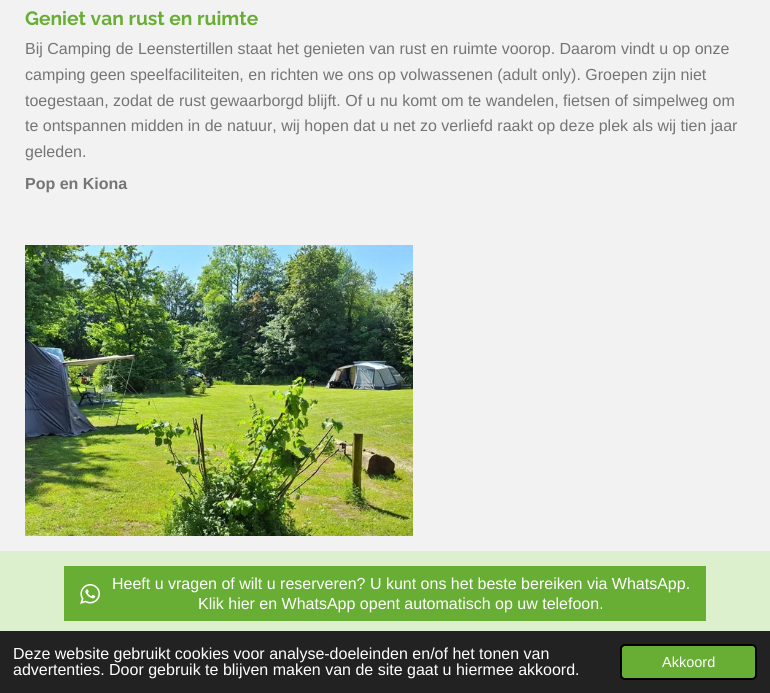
#include <cairo.h>
#include <math.h>
#include <stddef.h>

static cairo_t *c;
static void C(unsigned color){cairo_set_source_rgb(c, (color >> 16) / 255.0, (color >> 8 & 255) / 255.0, (color & 255) / 255.0);}
static void F(const char *family, double size, int italic, int bold){cairo_select_font_face(c, family, italic ? CAIRO_FONT_SLANT_ITALIC : CAIRO_FONT_SLANT_NORMAL,bold ? CAIRO_FONT_WEIGHT_BOLD : CAIRO_FONT_WEIGHT_NORMAL);cairo_set_font_size(c, size);}
static void T(double x, double y, const char *s){cairo_move_to(c, x, y);cairo_show_text(c, s);}
static void R(double x, double y, double w, double h){cairo_rectangle(c, x, y, w, h);cairo_fill(c);}
static void Q(double x, double y, double w, double h, double r){cairo_new_sub_path(c);cairo_arc(c, x + w - r, y + h - r, r, 0, M_PI / 2);cairo_arc(c, x + r, y + h - r, r, M_PI / 2, M_PI);cairo_arc(c, x + r, y + r, r, M_PI, 1.5 * M_PI);cairo_arc(c, x + w - r, y + r, r, 1.5 * M_PI, 2 * M_PI);cairo_close_path(c);}
static void I(const char *path, double x, double y, double w, double h){cairo_surface_t *image = cairo_image_surface_create_from_png(path);cairo_save(c);cairo_set_source_surface(c, image, x, y);cairo_rectangle(c, x, y, w, h);cairo_fill(c);cairo_restore(c);cairo_surface_destroy(image);}
int main(void) {
cairo_surface_t *surface = cairo_image_surface_create(CAIRO_FORMAT_RGB24, 770, 693);
c = cairo_create(surface);
cairo_font_options_t *options = cairo_font_options_create();
cairo_font_options_set_hint_metrics(options, CAIRO_HINT_METRICS_OFF);
cairo_font_options_set_hint_style(options, CAIRO_HINT_STYLE_NONE);
cairo_set_font_options(c, options);
cairo_set_miter_limit(c, 4);
C(0xf2f2f2);
cairo_paint(c);
F("Raleway",19.25,0,1);
C(0x68ae34);
T(25,25,"Geniet van rust en ruimte");
F("Liberation Sans",16,0,0);
C(0x757575);
T(25,54,"Bij Camping de Leenstertillen staat het genieten van rust en ruimte voorop. Daarom vindt u op onze");
T(25,80,"camping geen speelfaciliteiten, en richten we ons op volwassenen (adult only). Groepen zijn niet");
T(25,106,"toegestaan, zodat de rust gewaarborgd blijft. Of u nu komt om te wandelen, fietsen of simpelweg om");
T(25,131,"te ontspannen midden in de natuur, wij hopen dat u net zo verliefd raakt op deze plek als wij tien jaar");
T(25,157,"geleden.");
F("Liberation Sans",16,0,1);
T(25,189,"Pop en Kiona");
I("1.png",25,245,388,291);
C(0xddf0ce);
R(0,551,770,80);
C(0x68ae34);
R(64,566,642,55);
I("2.png",80,584,20,20);
F("Liberation Sans",16,0,0);
C(0xffffff);
T(112,589,"Heeft u vragen of wilt u reserveren? U kunt ons het beste bereiken via WhatsApp.");
T(198,609,"Klik hier en WhatsApp opent automatisch op uw telefoon.");
C(0x222222);
R(0,631,770,62);
C(0xffffff);
T(13,659,"Deze website gebruikt cookies voor analyse-doeleinden en/of het tonen van");
T(13,675,"advertenties. Door gebruik te blijven maken van de site gaat u hiermee akkoord.");
C(0x68ae34);
Q(621,645,135,34,4);
cairo_fill_preserve(c);
C(0x000000);
cairo_stroke(c);
F("Liberation Sans",14.5,0,0);
C(0xffffff);
T(662,667,"Akkoord");
cairo_surface_write_to_png(surface, "o.png");
cairo_font_options_destroy(options);
cairo_destroy(c);
cairo_surface_destroy(surface);
return 0;
}
